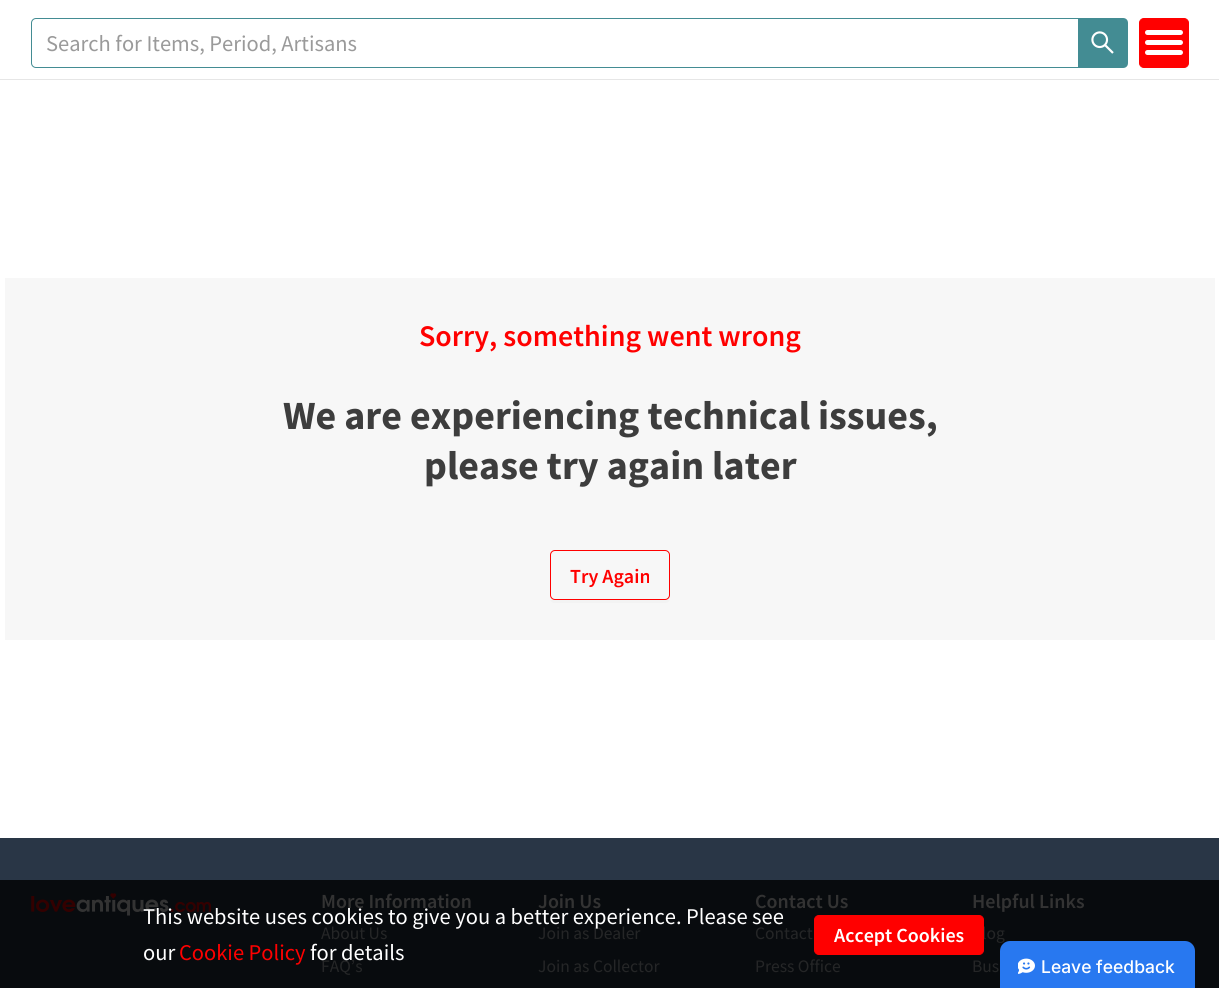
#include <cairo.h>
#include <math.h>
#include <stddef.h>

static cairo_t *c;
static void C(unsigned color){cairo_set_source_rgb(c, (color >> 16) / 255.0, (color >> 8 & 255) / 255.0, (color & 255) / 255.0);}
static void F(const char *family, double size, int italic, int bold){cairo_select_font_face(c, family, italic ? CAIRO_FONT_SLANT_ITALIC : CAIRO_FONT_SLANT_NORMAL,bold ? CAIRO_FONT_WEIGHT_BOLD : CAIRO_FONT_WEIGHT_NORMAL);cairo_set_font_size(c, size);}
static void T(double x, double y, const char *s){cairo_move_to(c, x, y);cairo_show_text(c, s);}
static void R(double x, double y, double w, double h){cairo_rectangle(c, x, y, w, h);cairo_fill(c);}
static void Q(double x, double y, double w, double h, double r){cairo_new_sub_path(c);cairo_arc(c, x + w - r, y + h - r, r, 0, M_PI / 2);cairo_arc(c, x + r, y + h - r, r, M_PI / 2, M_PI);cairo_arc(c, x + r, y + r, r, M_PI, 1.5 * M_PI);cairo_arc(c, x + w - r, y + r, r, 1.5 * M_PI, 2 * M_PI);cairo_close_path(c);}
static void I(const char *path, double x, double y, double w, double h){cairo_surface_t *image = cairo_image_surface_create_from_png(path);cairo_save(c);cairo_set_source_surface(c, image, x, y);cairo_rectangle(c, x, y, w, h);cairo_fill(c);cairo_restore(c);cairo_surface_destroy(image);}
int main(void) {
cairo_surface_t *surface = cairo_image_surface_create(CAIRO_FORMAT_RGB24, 1219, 988);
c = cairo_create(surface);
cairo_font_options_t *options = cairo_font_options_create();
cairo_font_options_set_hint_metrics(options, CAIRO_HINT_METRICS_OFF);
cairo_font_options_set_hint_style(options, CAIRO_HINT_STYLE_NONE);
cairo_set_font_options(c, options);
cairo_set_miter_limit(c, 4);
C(0xffffff);
cairo_paint(c);
C(0xe6e6e6);
R(0,79,1219,1);
cairo_new_path(c);
cairo_move_to(c,36,18.5);
cairo_line_to(c,1078.5,18.5);
cairo_line_to(c,1078.5,67.5);
cairo_line_to(c,36,67.5);
cairo_curve_to(c,33.5,67.5,31.5,65.5,31.5,63);
cairo_line_to(c,31.5,23);
cairo_curve_to(c,31.5,20.5,33.5,18.5,36,18.5);
cairo_close_path(c);
C(0x438c93);
cairo_set_line_width(c,1);
cairo_stroke(c);
F("Source Sans Pro",22.5,0,0);
C(0x9a9a9a);
T(46,51,"Search for Items, Period, Artisans");
C(0x438c93);
cairo_new_path(c);
cairo_move_to(c,1078,18);
cairo_line_to(c,1123,18);
cairo_curve_to(c,1126,18,1128,20,1128,23);
cairo_line_to(c,1128,63);
cairo_curve_to(c,1128,66,1126,68,1123,68);
cairo_line_to(c,1078,68);
cairo_close_path(c);
cairo_fill(c);
I("1.png",1091,31,23,23);
C(0xfbfbfb);
cairo_new_path(c);
cairo_move_to(c,1139,64);
cairo_curve_to(c,1139,67,1141,70,1144,70);
cairo_line_to(c,1185,70);
cairo_curve_to(c,1190,69,1189,62,1189,58);
cairo_line_to(c,1189,23);
cairo_line_to(c,1189,62);
cairo_curve_to(c,1189,65,1187,68,1184,68);
cairo_line_to(c,1144,68);
cairo_curve_to(c,1142,68,1140,66,1139,64);
cairo_close_path(c);
cairo_fill(c);
C(0xff0000);
Q(1139.5,18.5,49,49,4.5);
cairo_fill_preserve(c);
cairo_stroke(c);
C(0xffffff);
Q(1145,30,38,5,2.5);
cairo_fill(c);
Q(1145,40,38,5,2.5);
cairo_fill(c);
Q(1145,50,38,5,2.5);
cairo_fill(c);
C(0xf7f7f7);
R(5,278,1210,362);
F("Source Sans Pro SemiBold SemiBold",30,0,0);
C(0xff0000);
T(419,346,"Sorry, something went wrong");
F("Source Sans Pro",40,0,1);
C(0x3d3d3d);
T(283,429,"We are experiencing technical issues,");
T(424,479,"please try again later");
C(0xf3f3f3);
cairo_new_path(c);
cairo_move_to(c,550,595);
cairo_line_to(c,550,598);
cairo_curve_to(c,550,601,552,603,555,603);
cairo_line_to(c,665,603);
cairo_curve_to(c,668,603,670,601,670,598);
cairo_line_to(c,670,595);
cairo_curve_to(c,670,598,668,600,665,600);
cairo_line_to(c,555,600);
cairo_curve_to(c,552,600,550,598,550,595);
cairo_close_path(c);
cairo_fill(c);
Q(550.5,550.5,119,49,4.5);
C(0xff0000);
cairo_stroke(c);
F("Source Sans Pro SemiBold SemiBold",20,0,0);
T(570,583,"Try Again");
C(0x293646);
R(0,838,1219,42);
C(0x080b0e);
R(0,880,1219,108);
I("2.png",31,893,180,23);
C(0x333333);
T(321,908,"More Information");
F("Source Sans Pro",17.5,0,0);
C(0x252627);
T(321,939,"About Us");
T(321,972,"FAQ’s");
F("Source Sans Pro SemiBold SemiBold",20,0,0);
C(0x333333);
T(538,908,"Join Us");
F("Source Sans Pro",17.5,0,0);
C(0x252627);
T(538,939,"Join as Dealer");
T(538,972,"Join as Collector");
F("Source Sans Pro SemiBold SemiBold",20,0,0);
C(0x333333);
T(755,908,"Contact Us");
F("Source Sans Pro",17.5,0,0);
C(0x252627);
T(755,939,"Contact");
T(755,972,"Press Office");
F("Source Sans Pro SemiBold SemiBold",20,0,0);
C(0x333333);
T(972,908,"Helpful Links");
F("Source Sans Pro",17.5,0,0);
C(0x252627);
T(982,939,"log");
T(972,972,"Bus");
F("Source Sans Pro",22.5,0,0);
C(0xffffff);
T(143,924,"This website uses cookies to give you a better experience. Please see");
T(143,960,"our");
C(0xff0000);
T(179,960,"Cookie Policy");
C(0xffffff);
T(310,960,"for details");
C(0xff0000);
Q(814.5,915.5,169,39,4.5);
cairo_fill_preserve(c);
cairo_stroke(c);
F("Source Sans Pro SemiBold SemiBold",20,0,0);
C(0xffffff);
T(834,942,"Accept Cookies");
C(0x2878f0);
cairo_new_path(c);
cairo_move_to(c,1010,941);
cairo_line_to(c,1185,941);
cairo_curve_to(c,1190.5,941,1195,945.5,1195,951);
cairo_line_to(c,1195,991);
cairo_line_to(c,1000,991);
cairo_line_to(c,1000,951);
cairo_curve_to(c,1000,945.5,1004.5,941,1010,941);
cairo_close_path(c);
cairo_fill(c);
I("3.png",1018,958,17,16);
F("Inter Medium",17.5,0,0);
C(0xffffff);
T(1041,973,"Leave feedback");
cairo_surface_write_to_png(surface, "o.png");
cairo_font_options_destroy(options);
cairo_destroy(c);
cairo_surface_destroy(surface);
return 0;
}
